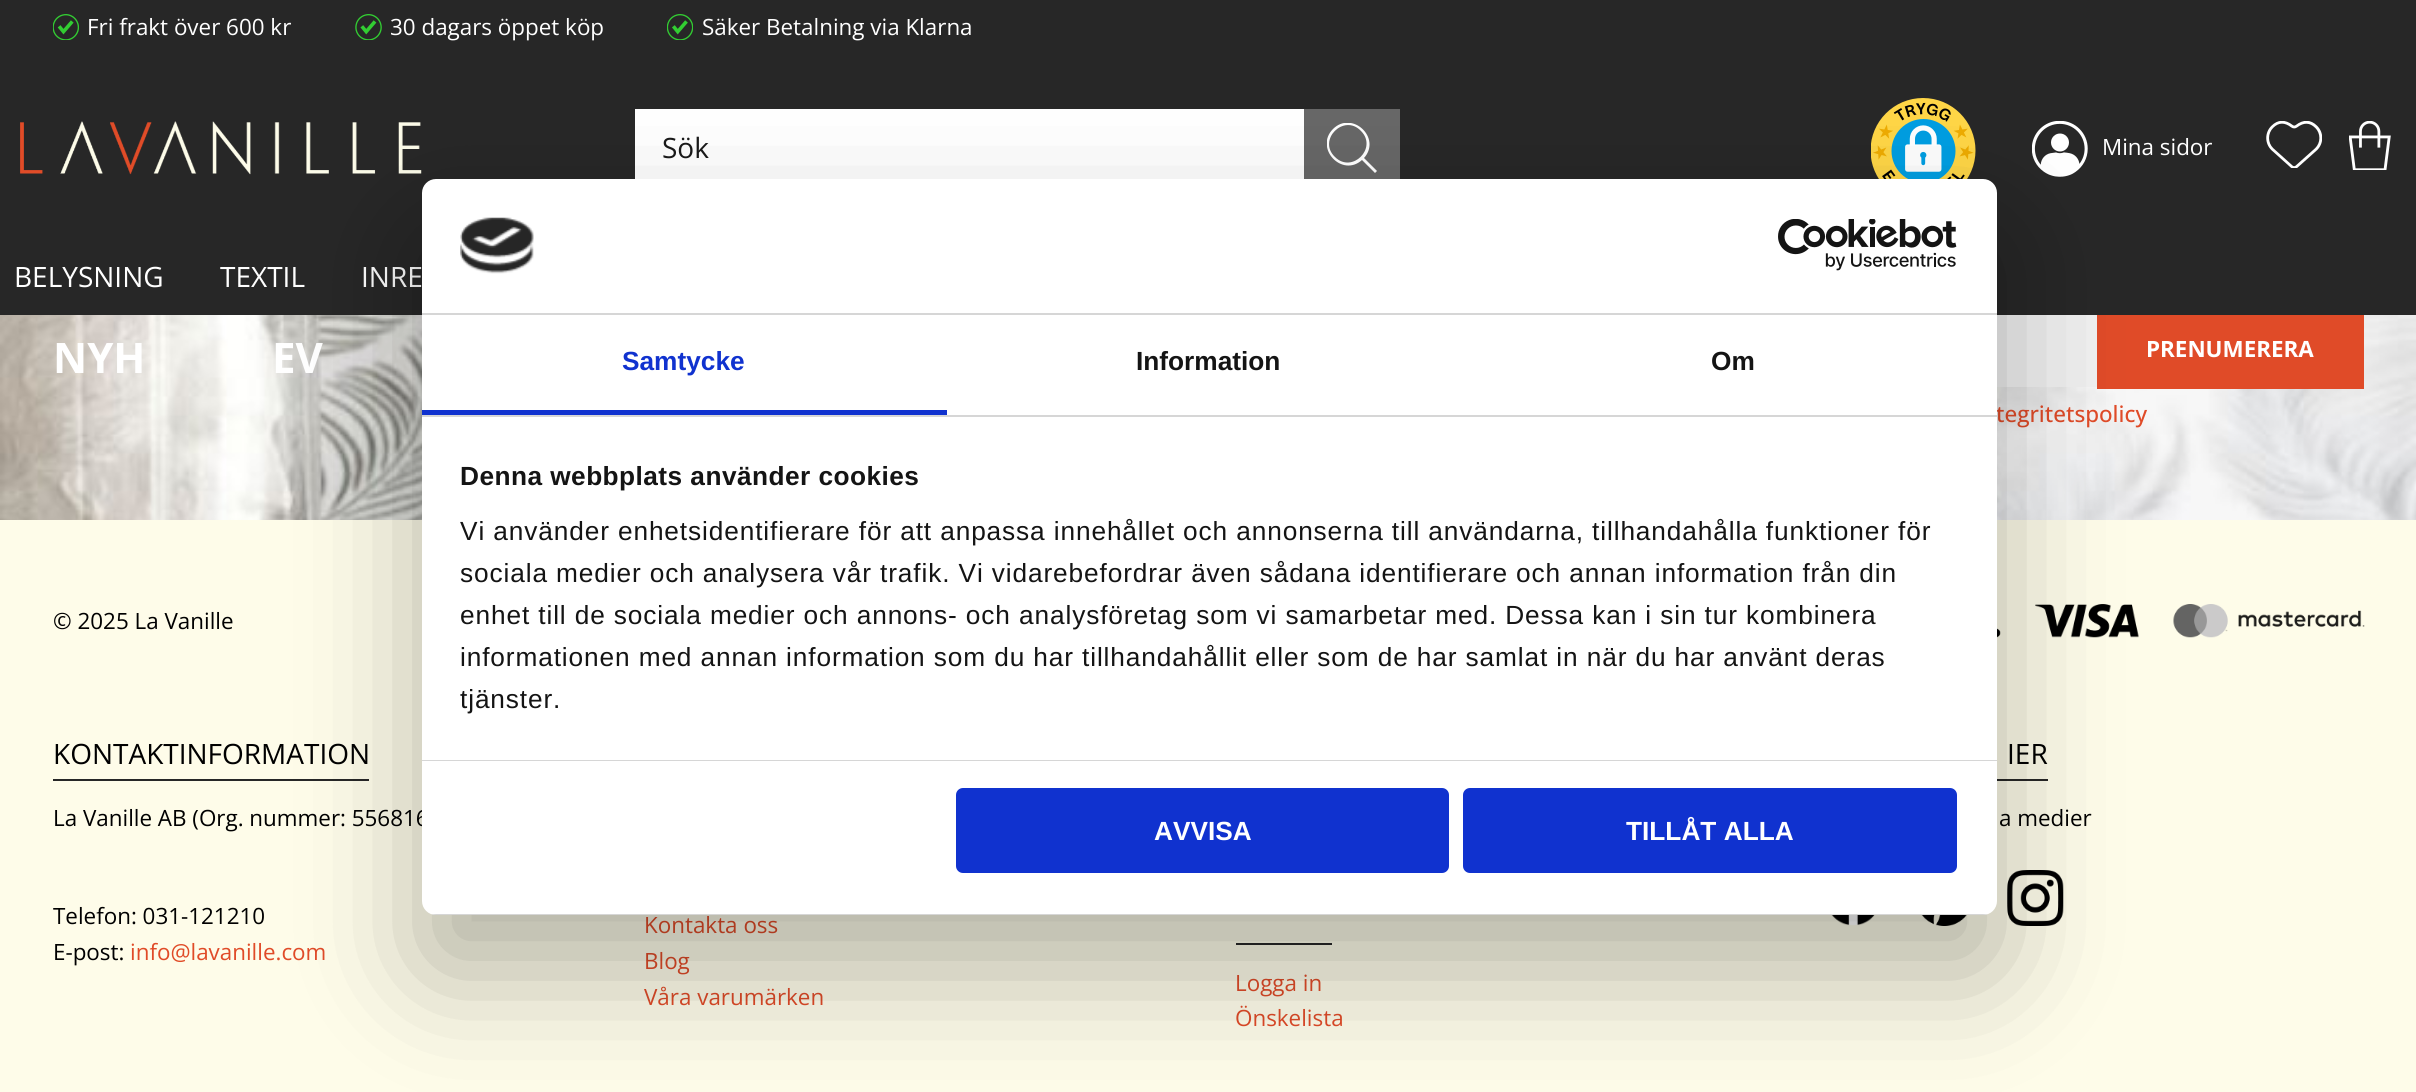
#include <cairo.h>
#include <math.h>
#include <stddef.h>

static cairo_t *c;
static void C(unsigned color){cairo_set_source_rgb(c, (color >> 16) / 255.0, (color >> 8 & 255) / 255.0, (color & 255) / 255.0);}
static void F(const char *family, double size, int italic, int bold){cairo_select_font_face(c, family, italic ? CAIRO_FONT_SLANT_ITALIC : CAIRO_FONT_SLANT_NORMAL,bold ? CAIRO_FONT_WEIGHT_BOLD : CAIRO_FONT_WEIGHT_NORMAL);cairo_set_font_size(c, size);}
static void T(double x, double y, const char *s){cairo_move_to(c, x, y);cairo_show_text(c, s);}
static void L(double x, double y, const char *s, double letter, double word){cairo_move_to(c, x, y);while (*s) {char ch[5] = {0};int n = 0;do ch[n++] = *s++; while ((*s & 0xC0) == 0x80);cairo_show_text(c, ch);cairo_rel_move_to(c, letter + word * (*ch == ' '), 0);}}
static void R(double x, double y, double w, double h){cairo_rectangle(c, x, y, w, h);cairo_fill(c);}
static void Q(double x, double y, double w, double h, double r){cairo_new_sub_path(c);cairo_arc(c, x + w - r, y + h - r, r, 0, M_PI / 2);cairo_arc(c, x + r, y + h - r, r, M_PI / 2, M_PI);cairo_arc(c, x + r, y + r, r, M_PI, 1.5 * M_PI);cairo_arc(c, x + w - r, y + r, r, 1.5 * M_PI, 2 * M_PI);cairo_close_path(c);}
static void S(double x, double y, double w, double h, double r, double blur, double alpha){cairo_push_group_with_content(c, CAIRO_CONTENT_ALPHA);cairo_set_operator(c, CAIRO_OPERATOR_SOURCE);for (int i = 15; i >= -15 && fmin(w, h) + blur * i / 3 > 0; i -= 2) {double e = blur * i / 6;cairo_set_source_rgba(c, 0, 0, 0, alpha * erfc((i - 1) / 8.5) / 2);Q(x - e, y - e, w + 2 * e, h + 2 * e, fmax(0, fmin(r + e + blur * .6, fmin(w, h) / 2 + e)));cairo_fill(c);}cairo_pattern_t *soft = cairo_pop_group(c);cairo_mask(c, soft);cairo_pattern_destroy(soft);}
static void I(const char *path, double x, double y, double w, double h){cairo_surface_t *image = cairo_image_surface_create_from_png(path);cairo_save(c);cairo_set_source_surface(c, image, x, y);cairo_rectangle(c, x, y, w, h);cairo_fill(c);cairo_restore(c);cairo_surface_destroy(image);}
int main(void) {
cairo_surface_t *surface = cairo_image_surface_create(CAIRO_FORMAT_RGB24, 2416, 1092);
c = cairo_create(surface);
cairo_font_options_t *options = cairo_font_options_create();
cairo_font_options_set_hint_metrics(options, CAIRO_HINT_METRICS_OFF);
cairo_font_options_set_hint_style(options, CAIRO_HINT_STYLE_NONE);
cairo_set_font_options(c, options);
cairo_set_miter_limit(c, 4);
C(0xfefce9);
cairo_paint(c);
C(0x272727);
R(0,0,2416,315);
I("1.png",53,14,26,26);
F("Open Sans",22.4,0,0);
C(0xffffff);
T(87,35,"Fri frakt över 600 kr");
I("2.png",355,14,27,26);
T(390,35,"30 dagars öppet köp");
I("3.png",667,14,26,26);
T(702,35,"Säker Betalning via Klarna");
I("4.png",20,121,402,54);
R(635,109,669,70);
F("Open Sans",28,0,0);
C(0x1a1a1a);
T(662,158,"Sök");
C(0x676767);
R(1304,109,96,70);
cairo_save(c);
cairo_rectangle(c,1327,123,50,50);
cairo_clip(c);
C(0xffffff);
cairo_new_path(c);
cairo_move_to(c,1364,158);
cairo_curve_to(c,1382,138,1352,110,1333,129);
cairo_curve_to(c,1314,148,1342,178,1362,160);
cairo_line_to(c,1375,173);
cairo_line_to(c,1377,171);
cairo_close_path(c);
cairo_move_to(c,1335,157);
cairo_curve_to(c,1317,140,1344,113,1361,131);
cairo_curve_to(c,1378,148,1352,174,1335,157);
cairo_close_path(c);
cairo_fill(c);
cairo_restore(c);
I("5.png",1871,98,105,81);
I("6.png",2032,121,56,56);
F("Open Sans",22.4,0,0);
C(0xffffff);
T(2102,155,"Mina sidor");
I("7.png",2266,121,56,47);
I("8.png",2349,121,42,49);
F("Open Sans",28,0,0);
T(14,287,"BELYSNING");
T(220,287,"TEXTIL");
T(361,287,"INRE");
I("9.png",0,315,2416,205);
F("Open Sans",42,0,1);
T(53,373,"NYH");
T(272,373,"EV");
C(0xf0f0f0);
R(1997,315,100,72);
C(0xe04b28);
R(2097,315,267,74);
F("Open Sans",22.4,0,1);
C(0xffffff);
T(2146,357,"PRENUMERERA");
F("Open Sans Medium",22.4,0,0);
C(0xe04b28);
T(1996,422,"tegritetspolicy");
F("Open Sans",22.4,0,0);
C(0x000000);
T(53,629,"© 2025 La Vanille");
I("10.png",1997,628,4,10);
I("11.png",2035,604,104,34);
I("12.png",2173,604,192,34);
F("Open Sans",28,0,0);
T(53,764,"KONTAKTINFORMATION");
C(0x272727);
R(53,779,316,2);
F("Open Sans",22.4,0,0);
C(0x000000);
T(53,826,"La Vanille AB (Org. nummer: 556816");
T(53,924,"Telefon: 031-121210");
T(53,960,"E-post:");
C(0xe04b28);
T(130,960,"info@lavanille.com");
F("Open Sans",28,0,0);
C(0x000000);
T(2007,764,"IER");
C(0x272727);
R(1997,779,51,2);
F("Open Sans",22.4,0,0);
C(0x000000);
T(1999,826,"a medier");
I("13.png",1831,915,44,11);
I("14.png",1921,915,46,11);
I("15.png",2007,870,57,56);
C(0xe04b28);
T(644,933,"Kontakta oss");
T(644,969,"Blog");
T(644,1005,"Våra varumärken");
C(0x272727);
R(1236,943,96,2);
C(0xe04b28);
T(1235,991,"Logga in");
T(1235,1026,"Önskelista");
C(0x000000);
S(422,235,1575,736,14,59.5,.3);
C(0xffffff);
Q(422,179,1575,736,14);
cairo_fill(c);
C(0xd6d6d6);
R(422,313,1575,2);
I("16.png",460,217,74,57);
I("17.png",1778,219,179,52);
R(422,415,1575,2);
C(0x1032cf);
R(422,410,525,5);
F("Liberation Sans",26.25,0,1);
T(622,370,"Samtycke");
C(0x141414);
T(1136,370,"Information");
T(1711,370,"Om");
C(0xd6d6d6);
R(422,760,1575,1);
C(0x141414);
L(460,485,"Denna webbplats använder cookies",.45,0);
F("Liberation Sans",26.25,0,0);
L(460,540,"Vi använder enhetsidentifierare för att anpassa innehållet och annonserna till användarna, tillhandahålla funktioner för",.88,0);
L(460,582,"sociala medier och analysera vår trafik. Vi vidarebefordrar även sådana identifierare och annan information från din",.88,0);
L(460,624,"enhet till de sociala medier och annons- och analysföretag som vi samarbetar med. Dessa kan i sin tur kombinera",.88,0);
L(460,666,"informationen med annan information som du har tillhandahållit eller som de har samlat in när du har använt deras",.88,0);
L(460,708,"tjänster.",.88,0);
cairo_save(c);
Q(422,179,1575,736,14);
cairo_clip(c);
C(0xd6d6d6);
R(431,914,1557,1);
cairo_restore(c);
C(0x1032cf);
Q(958,790,489,81,5);
cairo_fill_preserve(c);
cairo_set_line_width(c,4);
cairo_stroke(c);
F("Liberation Sans",26.25,0,1);
C(0xffffff);
T(1154,840,"AVVISA");
C(0x1032cf);
Q(1465,790,490,81,5);
cairo_fill_preserve(c);
cairo_stroke(c);
C(0xffffff);
T(1626,840,"TILLÅT ALLA");
cairo_surface_write_to_png(surface, "o.png");
cairo_font_options_destroy(options);
cairo_destroy(c);
cairo_surface_destroy(surface);
return 0;
}
